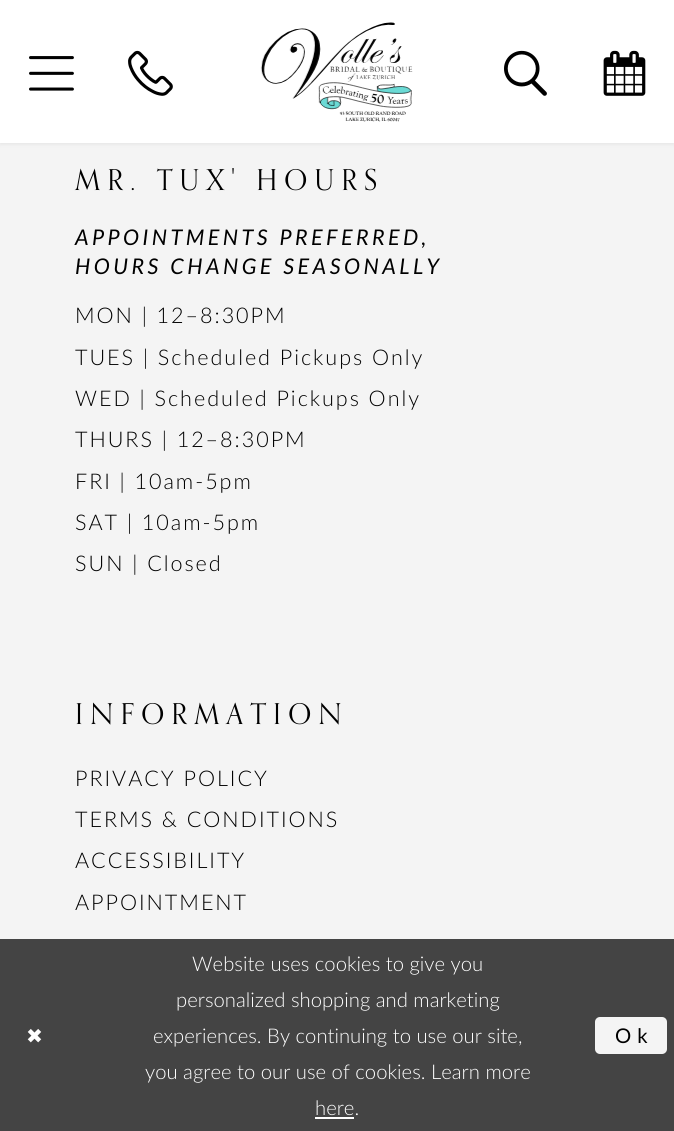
#include <cairo.h>
#include <math.h>
#include <stddef.h>

static cairo_t *c;
static void C(unsigned color){cairo_set_source_rgb(c, (color >> 16) / 255.0, (color >> 8 & 255) / 255.0, (color & 255) / 255.0);}
static void F(const char *family, double size, int italic, int bold){cairo_select_font_face(c, family, italic ? CAIRO_FONT_SLANT_ITALIC : CAIRO_FONT_SLANT_NORMAL,bold ? CAIRO_FONT_WEIGHT_BOLD : CAIRO_FONT_WEIGHT_NORMAL);cairo_set_font_size(c, size);}
static void T(double x, double y, const char *s){cairo_move_to(c, x, y);cairo_show_text(c, s);}
static void L(double x, double y, const char *s, double letter, double word){cairo_move_to(c, x, y);while (*s) {char ch[5] = {0};int n = 0;do ch[n++] = *s++; while ((*s & 0xC0) == 0x80);cairo_show_text(c, ch);cairo_rel_move_to(c, letter + word * (*ch == ' '), 0);}}
static void R(double x, double y, double w, double h){cairo_rectangle(c, x, y, w, h);cairo_fill(c);}
static void Q(double x, double y, double w, double h, double r){cairo_new_sub_path(c);cairo_arc(c, x + w - r, y + h - r, r, 0, M_PI / 2);cairo_arc(c, x + r, y + h - r, r, M_PI / 2, M_PI);cairo_arc(c, x + r, y + r, r, M_PI, 1.5 * M_PI);cairo_arc(c, x + w - r, y + r, r, 1.5 * M_PI, 2 * M_PI);cairo_close_path(c);}
static void S(double x, double y, double w, double h, double r, double blur, double alpha){cairo_push_group_with_content(c, CAIRO_CONTENT_ALPHA);cairo_set_operator(c, CAIRO_OPERATOR_SOURCE);for (int i = 15; i >= -15 && fmin(w, h) + blur * i / 3 > 0; i -= 2) {double e = blur * i / 6;cairo_set_source_rgba(c, 0, 0, 0, alpha * erfc((i - 1) / 8.5) / 2);Q(x - e, y - e, w + 2 * e, h + 2 * e, fmax(0, fmin(r + e + blur * .6, fmin(w, h) / 2 + e)));cairo_fill(c);}cairo_pattern_t *soft = cairo_pop_group(c);cairo_mask(c, soft);cairo_pattern_destroy(soft);}
static void I(const char *path, double x, double y, double w, double h){cairo_surface_t *image = cairo_image_surface_create_from_png(path);cairo_save(c);cairo_set_source_surface(c, image, x, y);cairo_rectangle(c, x, y, w, h);cairo_fill(c);cairo_restore(c);cairo_surface_destroy(image);}
int main(void) {
cairo_surface_t *surface = cairo_image_surface_create(CAIRO_FORMAT_RGB24, 674, 1131);
c = cairo_create(surface);
cairo_font_options_t *options = cairo_font_options_create();
cairo_font_options_set_hint_metrics(options, CAIRO_HINT_METRICS_OFF);
cairo_font_options_set_hint_style(options, CAIRO_HINT_STYLE_NONE);
cairo_set_font_options(c, options);
cairo_set_miter_limit(c, 4);
C(0xf4f4f4);
cairo_paint(c);
C(0x4c4c4b);
S(0,1,674,143,0,2,.1);
C(0xffffff);
R(0,0,674,143);
I("1.png",29,56,45,35);
I("2.png",128,50,45,46);
I("3.png",260,22,153,100);
I("4.png",504,50,43,46);
I("5.png",603,50,43,46);
F("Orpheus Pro",28.75,0,0);
C(0x000000);
L(75,190,"MR. TUX' HOURS",7.1,0);
F("Lato",21.6,1,0);
L(75,245,"APPOINTMENTS PREFERRED,",3.4,0);
L(75,274,"HOURS CHANGE SEASONALLY",3.4,0);
F("Lato Light",21.6,0,0);
L(75,323,"MON | 12–8:30PM",1.95,0);
L(75,365,"TUES | Scheduled Pickups Only",1.95,0);
L(75,406,"WED | Scheduled Pickups Only",1.95,0);
L(75,447,"THURS | 12–8:30PM",1.95,0);
L(75,489,"FRI | 10am-5pm",1.95,0);
L(75,530,"SAT | 10am-5pm",1.95,0);
L(75,571,"SUN | Closed",1.95,0);
F("Orpheus Pro",28.75,0,0);
L(75,724,"INFORMATION",7.1,0);
F("Lato Light",21.6,0,0);
L(75,786,"PRIVACY POLICY",1.95,0);
L(75,827,"TERMS & CONDITIONS",1.95,0);
L(75,868,"ACCESSIBILITY",1.95,0);
L(75,910,"APPOINTMENT",1.95,0);
C(0x444444);
R(0,939,674,192);
F("DejaVu Sans",20.25,0,0);
C(0xffffff);
L(26,1043,"✖",6,0);
F("Lato Light",20.25,0,0);
T(192,971,"Website uses cookies to give you");
T(176,1007,"personalized shopping and marketing");
T(153,1043,"experiences. By continuing to use our site,");
T(145,1079,"you agree to our use of cookies. Learn more");
T(315,1115,"here.");
R(315,1117,39,2);
C(0xf4f4f4);
Q(595,1017,72,37,5);
cairo_fill(c);
F("Lato",20.25,0,0);
C(0x000000);
L(615,1043,"Ok",6,0);
cairo_surface_write_to_png(surface, "o.png");
cairo_font_options_destroy(options);
cairo_destroy(c);
cairo_surface_destroy(surface);
return 0;
}
